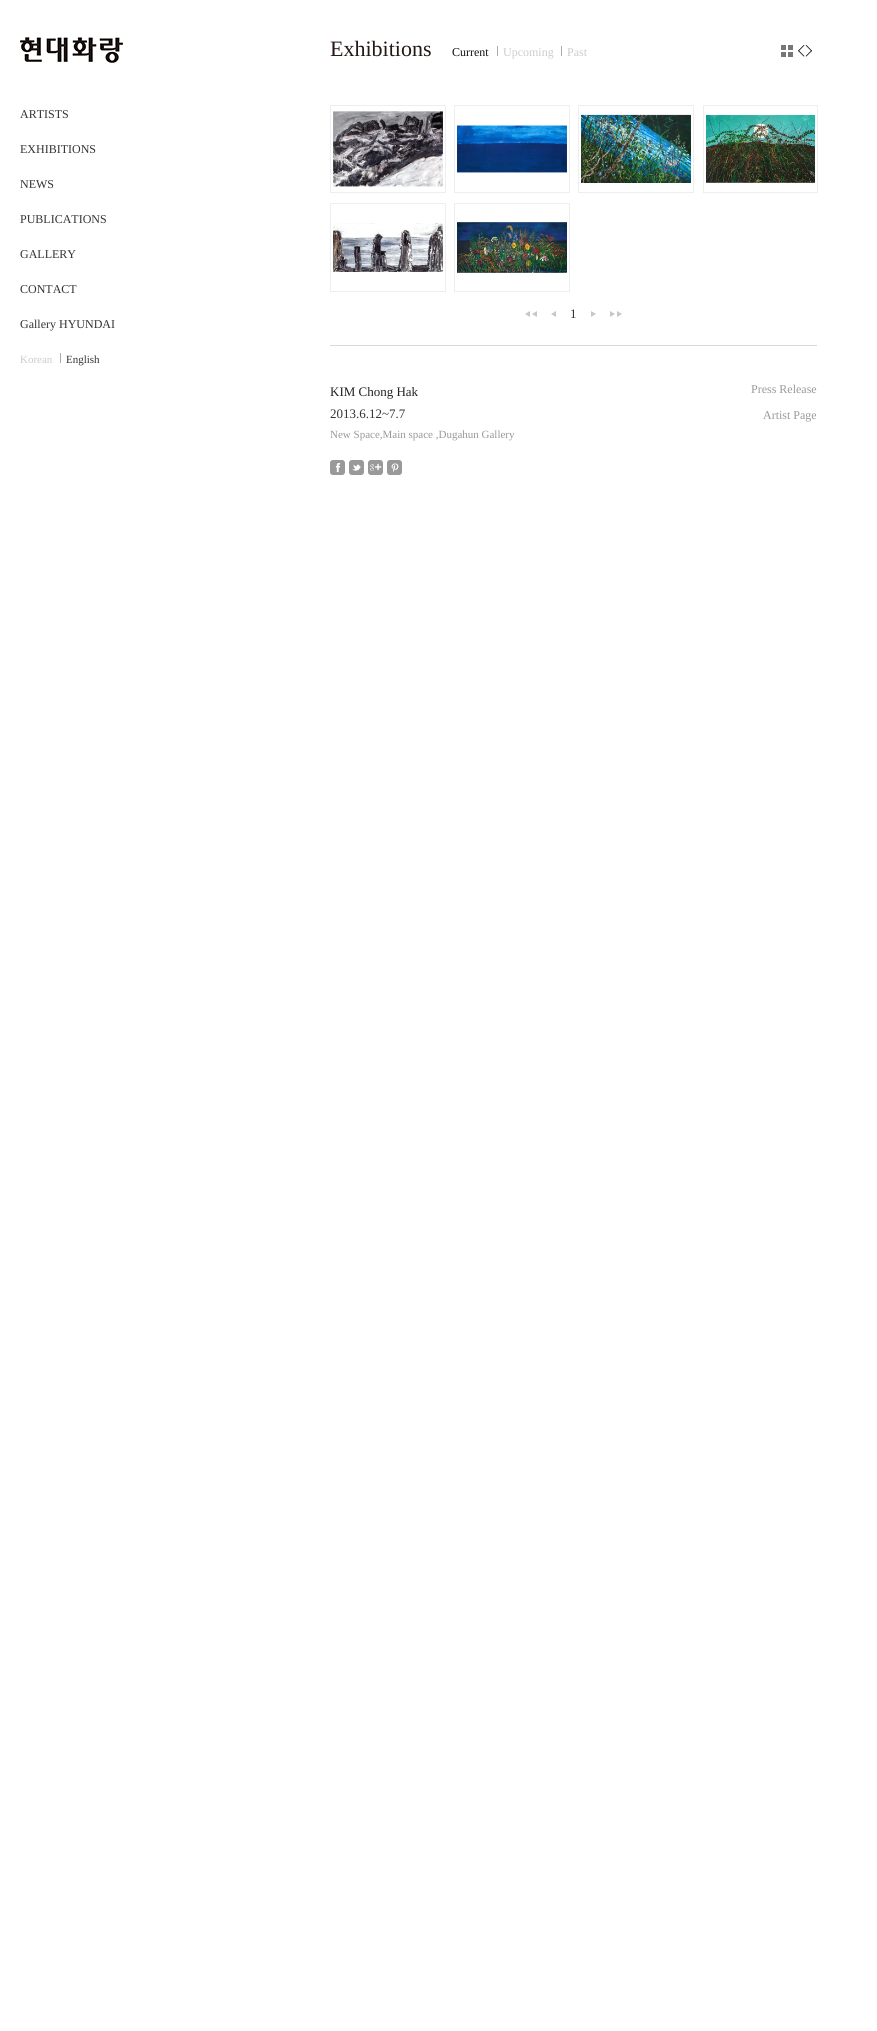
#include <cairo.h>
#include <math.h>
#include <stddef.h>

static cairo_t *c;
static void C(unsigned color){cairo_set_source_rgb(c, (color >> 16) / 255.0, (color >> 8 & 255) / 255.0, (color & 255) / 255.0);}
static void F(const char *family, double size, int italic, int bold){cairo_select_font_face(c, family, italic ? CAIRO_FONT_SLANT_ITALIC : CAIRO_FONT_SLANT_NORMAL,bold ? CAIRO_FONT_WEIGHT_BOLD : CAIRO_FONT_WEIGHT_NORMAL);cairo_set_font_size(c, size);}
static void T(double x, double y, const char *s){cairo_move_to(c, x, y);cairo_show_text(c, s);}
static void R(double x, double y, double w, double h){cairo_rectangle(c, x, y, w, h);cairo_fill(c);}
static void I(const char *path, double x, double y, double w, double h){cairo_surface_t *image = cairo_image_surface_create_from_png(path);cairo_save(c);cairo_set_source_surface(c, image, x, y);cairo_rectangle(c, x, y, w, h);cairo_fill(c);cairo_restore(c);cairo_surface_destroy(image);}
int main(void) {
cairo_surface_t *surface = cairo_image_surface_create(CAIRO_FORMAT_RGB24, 877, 2031);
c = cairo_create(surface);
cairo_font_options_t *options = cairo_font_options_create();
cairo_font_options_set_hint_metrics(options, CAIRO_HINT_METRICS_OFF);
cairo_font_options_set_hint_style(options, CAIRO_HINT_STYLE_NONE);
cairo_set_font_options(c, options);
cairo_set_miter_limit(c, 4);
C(0xffffff);
cairo_paint(c);
I("1.png",20,37,103,26);
F("Liberation Serif",12,0,0);
C(0x333333);
T(20,118,"ARTISTS");
T(20,153,"EXHIBITIONS");
T(20,188,"NEWS");
T(20,223,"PUBLICATIONS");
T(20,258,"GALLERY");
T(20,293,"CONTACT");
T(20,328,"Gallery HYUNDAI");
F("Liberation Serif",11,0,0);
C(0xcccccc);
T(20,363,"Korean");
C(0xaaaaaa);
R(60,353,1,10);
C(0x333333);
T(66,363,"English");
F("Liberation Serif",22,0,0);
C(0x231815);
T(330,56,"Exhibitions");
F("Liberation Serif",12,0,0);
C(0x111111);
T(452,56,"Current");
C(0xaaaaaa);
R(497,46,1,10);
C(0xcccccc);
T(503,56,"Upcoming");
C(0xaaaaaa);
R(561,46,1,10);
C(0xcccccc);
T(567,56,"Past");
I("2.png",781,45,12,12);
I("3.png",798,45,14,12);
cairo_rectangle(c,330.5,105.5,115,87);
C(0xeeeeee);
cairo_set_line_width(c,1);
cairo_stroke(c);
I("4.png",333,111,110,76);
cairo_rectangle(c,454.5,105.5,115,87);
cairo_stroke(c);
I("5.png",457,125,110,48);
cairo_rectangle(c,578.5,105.5,115,87);
cairo_stroke(c);
I("6.png",581,114,110,69);
cairo_rectangle(c,703.5,105.5,114,87);
cairo_stroke(c);
I("7.png",706,115,109,68);
cairo_rectangle(c,330.5,203.5,115,88);
cairo_stroke(c);
I("8.png",333,223,110,49);
cairo_rectangle(c,454.5,203.5,115,88);
cairo_stroke(c);
I("9.png",457,222,110,51);
I("10.png",525,311,12,6);
I("11.png",551,311,5,6);
F("Liberation Serif",13,0,0);
C(0x333333);
T(570,318,"1");
I("12.png",591,311,5,6);
I("13.png",610,311,12,6);
C(0xdadada);
R(330,345,487,1);
C(0x222222);
T(330,396,"KIM Chong Hak");
C(0x333333);
T(330,418,"2013.6.12~7.7");
F("Liberation Serif",11,0,0);
C(0x999999);
T(330,438,"New Space,Main space ,Dugahun Gallery");
I("14.png",330,460,15,15);
I("15.png",349,460,15,15);
I("16.png",368,460,15,15);
I("17.png",387,460,15,15);
F("Liberation Serif",12,0,0);
T(751,393,"Press Release");
T(763,419,"Artist Page");
cairo_surface_write_to_png(surface, "o.png");
cairo_font_options_destroy(options);
cairo_destroy(c);
cairo_surface_destroy(surface);
return 0;
}
